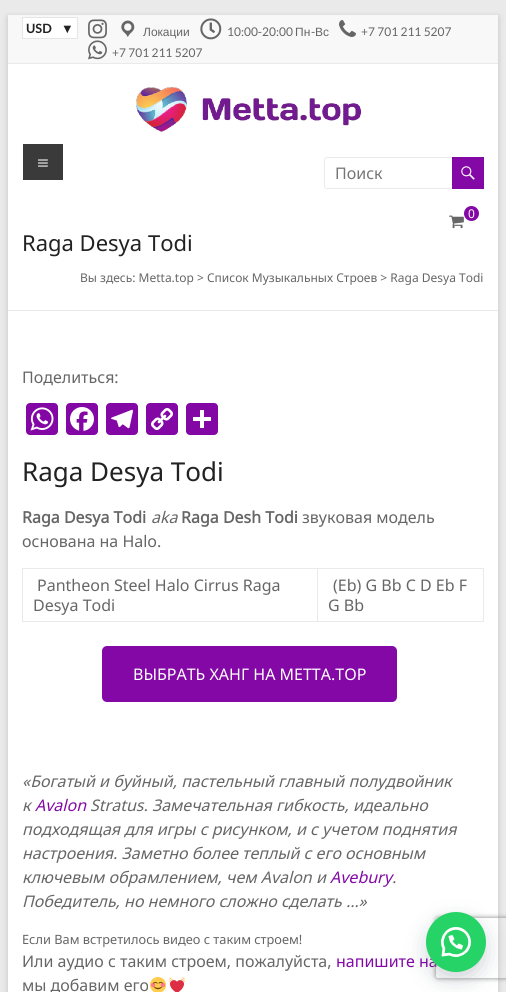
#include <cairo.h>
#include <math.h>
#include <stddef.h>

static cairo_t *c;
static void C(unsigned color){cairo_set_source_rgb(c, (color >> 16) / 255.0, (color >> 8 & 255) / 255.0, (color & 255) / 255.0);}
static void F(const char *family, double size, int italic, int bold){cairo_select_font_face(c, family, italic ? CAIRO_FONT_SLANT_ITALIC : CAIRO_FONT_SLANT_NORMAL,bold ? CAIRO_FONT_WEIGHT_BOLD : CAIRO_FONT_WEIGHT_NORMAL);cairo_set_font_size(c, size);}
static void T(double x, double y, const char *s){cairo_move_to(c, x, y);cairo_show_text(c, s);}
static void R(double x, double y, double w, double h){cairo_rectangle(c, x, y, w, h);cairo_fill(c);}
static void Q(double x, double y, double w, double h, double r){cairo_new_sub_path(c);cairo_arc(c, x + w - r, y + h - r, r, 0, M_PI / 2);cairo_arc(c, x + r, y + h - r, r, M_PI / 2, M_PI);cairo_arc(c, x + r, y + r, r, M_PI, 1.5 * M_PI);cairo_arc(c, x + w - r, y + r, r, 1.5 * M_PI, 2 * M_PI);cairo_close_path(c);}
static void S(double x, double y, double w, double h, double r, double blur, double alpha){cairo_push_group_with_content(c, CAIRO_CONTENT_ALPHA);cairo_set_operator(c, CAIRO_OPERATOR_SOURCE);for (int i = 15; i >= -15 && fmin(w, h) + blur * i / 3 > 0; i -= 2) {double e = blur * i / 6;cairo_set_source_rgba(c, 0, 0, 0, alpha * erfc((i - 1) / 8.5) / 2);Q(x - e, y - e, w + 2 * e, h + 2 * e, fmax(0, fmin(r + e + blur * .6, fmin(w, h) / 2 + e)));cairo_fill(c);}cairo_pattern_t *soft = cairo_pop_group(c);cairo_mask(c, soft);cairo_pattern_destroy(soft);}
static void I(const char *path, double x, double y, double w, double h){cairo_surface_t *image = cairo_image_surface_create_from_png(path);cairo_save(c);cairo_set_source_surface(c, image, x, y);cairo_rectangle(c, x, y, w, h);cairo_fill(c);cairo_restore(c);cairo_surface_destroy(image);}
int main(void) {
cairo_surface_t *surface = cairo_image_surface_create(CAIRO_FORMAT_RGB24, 506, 992);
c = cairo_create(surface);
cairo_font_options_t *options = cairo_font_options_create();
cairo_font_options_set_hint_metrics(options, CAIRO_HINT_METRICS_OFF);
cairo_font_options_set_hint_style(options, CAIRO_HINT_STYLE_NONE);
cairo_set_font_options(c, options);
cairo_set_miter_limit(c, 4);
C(0xeaeaea);
cairo_paint(c);
C(0x646464);
S(8,17,490,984,0,3,.3);
C(0xffffff);
R(8,64,490,928);
C(0xf8f8f8);
R(8,15,490,48);
C(0xeaeaea);
R(8,63,490,1);
C(0xffffff);
cairo_rectangle(c,22.5,17.5,55,21);
cairo_fill_preserve(c);
C(0xe5e5e5);
cairo_set_line_width(c,1);
cairo_stroke(c);
F("Lato",12.8,0,1);
C(0x222222);
T(26,33,"USD");
F("Liberation Sans",12.8,0,1);
T(61,33,"▼");
I("1.png",88,19,19,20);
I("2.png",121,20,14,17);
F("Liberation Sans",12,0,0);
C(0x666666);
T(143,36,"Локации");
I("3.png",200,18,22,22);
F("Lato",12,0,0);
T(227,36,"10:00-20:00");
F("Liberation Sans",12,0,0);
T(295,36,"Пн");
F("Lato",12,0,0);
T(311,36,"-");
F("Liberation Sans",12,0,0);
T(315,36,"Вс");
I("4.png",339,20,17,17);
F("Lato",12,0,0);
T(361,36,"+7 701 211 5207");
I("5.png",88,40,19,20);
T(112,57,"+7 701 211 5207");
C(0x3a3a3a);
R(23,144,40,36);
F("Liberation Serif",21,0,0);
C(0xffffff);
T(37,170,"≡");
C(0x8308a5);
cairo_new_path(c);
cairo_arc(c,471.5,213.5,7.5,0,2 * M_PI);
cairo_fill(c);
F("Noto Sans",12,0,0);
C(0xffffff);
T(468,218,"0");
I("6.png",449,215,15,14);
I("7.png",136,87,226,45);
Q(324.5,157.5,129,31,2.5);
C(0xeaeaea);
cairo_stroke(c);
F("Noto Sans",16,0,0);
C(0x757575);
T(335,179,"Поиск");
C(0x8308a5);
R(452,157,32,32);
I("8.png",461,166,14,14);
C(0xeaeaea);
R(8,310,490,1);
F("Noto Sans",22,0,0);
C(0x222222);
T(22,251,"Raga Desya Todi");
F("Noto Sans",12,0,0);
C(0x666666);
T(80,282,"Вы здесь: Metta.top > Список Музыкальных Строев > Raga Desya Todi");
F("Noto Sans",16,0,0);
T(22,383,"Поделиться:");
C(0x8307a5);
Q(26,403,32,32,4);
cairo_fill(c);
I("9.png",30,407,24,24);
Q(66,403,32,32,4);
cairo_fill(c);
I("10.png",70,407,24,24);
Q(106,403,32,32,4);
cairo_fill(c);
I("11.png",111,409,22,20);
Q(146,403,32,32,4);
cairo_fill(c);
I("12.png",151,408,22,22);
Q(186,403,32,32,4);
cairo_fill(c);
C(0xffffff);
R(200,410,4,18);
R(193,417,18,4);
F("Noto Sans",26,0,0);
C(0x222222);
T(22,481,"Raga Desya Todi");
F("Noto Sans",16,0,1);
C(0x666666);
T(22,523,"Raga Desya Todi");
F("Noto Sans",16,1,0);
T(151,523,"aka");
F("Noto Sans",16,0,1);
T(181,523,"Raga Desh Todi");
F("Noto Sans",16,0,0);
T(302,523,"звуковая модель");
T(22,547,"основана на Halo.");
C(0xeaeaea);
R(317,568,167,1);
R(483,568,1,54);
R(317,621,167,1);
R(317,568,1,54);
R(22,568,296,1);
R(22,621,296,1);
R(22,568,1,54);
C(0x666666);
T(37,591,"Pantheon Steel Halo Cirrus Raga");
T(33,611,"Desya Todi");
T(333,591,"(Eb) G Bb C D Eb F");
T(328,611,"G Bb");
C(0x8308a5);
Q(102,646,295,56,5);
cairo_fill(c);
C(0xffffff);
T(133,680,"ВЫБРАТЬ ХАНГ НА METTA.TOP");
F("Noto Sans",16,1,0);
C(0x666666);
T(22,787,"«Богатый и буйный, пастельный главный полудвойник");
T(22,811,"к");
C(0x8308a5);
T(35,811,"Avalon");
C(0x666666);
T(90,811,"Stratus. Замечательная гибкость, идеально");
T(22,835,"подходящая для игры с рисунком, и с учетом поднятия");
T(22,859,"настроения. Заметно более теплый с его основным");
T(22,883,"ключевым обрамлением, чем Avalon и");
C(0x8308a5);
T(330,883,"Avebury");
C(0x666666);
T(392,883,".");
T(22,907,"Победитель, но немного сложно сделать …»");
F("Noto Sans",12.8,0,0);
T(22,944,"Если Вам встретилось видео с таким строем!");
F("Noto Sans",16,0,0);
T(22,967,"Или аудио с таким строем, пожалуйста,");
C(0x8308a5);
T(336,967,"напишите на");
C(0x666666);
T(22,991,"мы добавим его");
I("13.png",150,977,16,15);
I("14.png",169,977,16,15);
C(0x2d3e4f);
S(431,925,50,50,25,12.5,.3);
cairo_save(c);
cairo_set_fill_rule(c,CAIRO_FILL_RULE_EVEN_ODD);
cairo_new_path(c);
cairo_move_to(c,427,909);
cairo_line_to(c,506,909);
cairo_line_to(c,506,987);
cairo_line_to(c,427,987);
cairo_close_path(c);
cairo_move_to(c,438,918);
cairo_line_to(c,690,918);
cairo_curve_to(c,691,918,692,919,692,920);
cairo_line_to(c,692,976);
cairo_curve_to(c,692,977,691,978,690,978);
cairo_line_to(c,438,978);
cairo_curve_to(c,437,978,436,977,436,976);
cairo_line_to(c,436,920);
cairo_curve_to(c,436,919,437,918,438,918);
cairo_close_path(c);
cairo_clip(c);
C(0x808080);
S(436,918,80,60,2,2.5,1);
cairo_restore(c);
C(0x25d366);
cairo_arc(c,456,942,30,0,2 * M_PI);
cairo_fill(c);
I("15.png",441,927,30,30);
cairo_surface_write_to_png(surface, "o.png");
cairo_font_options_destroy(options);
cairo_destroy(c);
cairo_surface_destroy(surface);
return 0;
}
